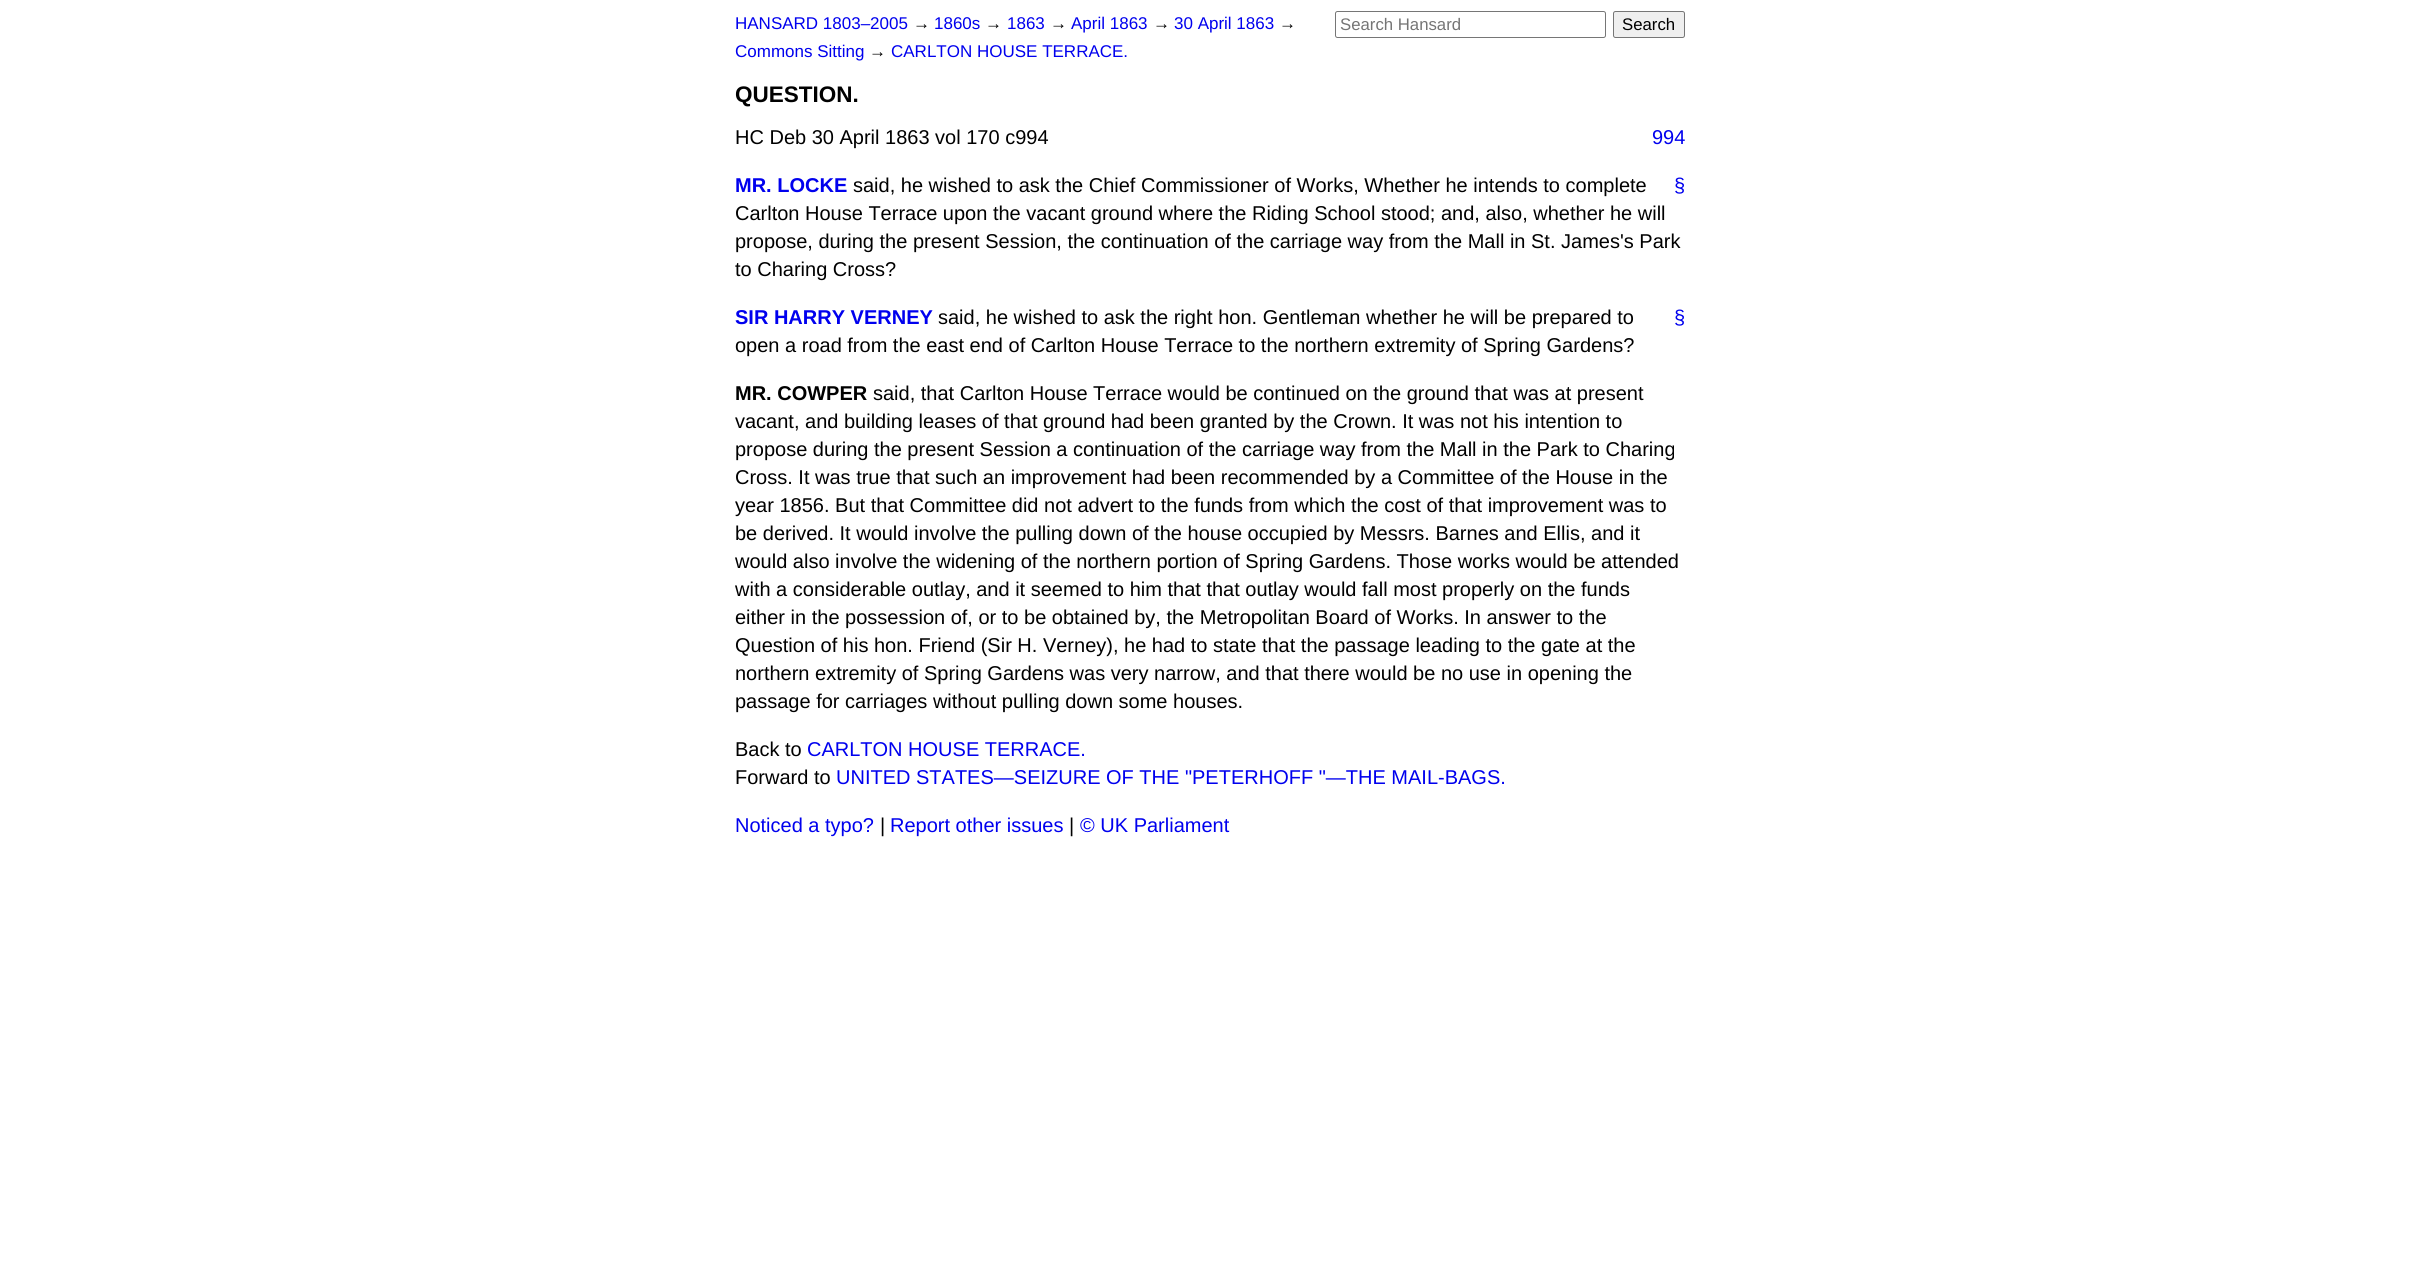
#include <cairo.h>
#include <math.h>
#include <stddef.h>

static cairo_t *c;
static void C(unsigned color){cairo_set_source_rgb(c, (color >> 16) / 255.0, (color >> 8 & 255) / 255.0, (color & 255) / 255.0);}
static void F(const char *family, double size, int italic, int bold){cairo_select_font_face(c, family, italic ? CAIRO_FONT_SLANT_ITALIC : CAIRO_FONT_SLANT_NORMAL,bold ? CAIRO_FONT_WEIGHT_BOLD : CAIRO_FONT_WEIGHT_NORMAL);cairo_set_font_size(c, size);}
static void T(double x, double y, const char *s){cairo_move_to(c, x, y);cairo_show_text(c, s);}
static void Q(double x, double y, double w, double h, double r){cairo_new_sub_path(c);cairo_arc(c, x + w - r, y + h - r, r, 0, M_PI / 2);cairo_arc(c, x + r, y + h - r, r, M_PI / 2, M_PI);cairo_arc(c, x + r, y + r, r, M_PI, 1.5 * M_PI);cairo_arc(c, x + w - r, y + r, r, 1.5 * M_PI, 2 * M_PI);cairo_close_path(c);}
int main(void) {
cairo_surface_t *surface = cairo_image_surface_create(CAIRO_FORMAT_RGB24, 2420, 1287);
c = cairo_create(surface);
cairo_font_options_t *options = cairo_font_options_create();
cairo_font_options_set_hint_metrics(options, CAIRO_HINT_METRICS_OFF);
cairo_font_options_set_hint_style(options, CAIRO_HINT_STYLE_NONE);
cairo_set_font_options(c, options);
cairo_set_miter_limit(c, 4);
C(0xffffff);
cairo_paint(c);
F("Liberation Sans",17,0,0);
C(0x0000ee);
T(735,29,"HANSARD 1803–2005");
C(0x000000);
T(913,29,"→");
C(0x0000ee);
T(934,29,"1860s");
C(0x000000);
T(985,29,"→");
C(0x0000ee);
T(1007,29,"1863");
C(0x000000);
T(1050,29,"→");
C(0x0000ee);
T(1071,29,"April 1863");
C(0x000000);
T(1153,29,"→");
C(0x0000ee);
T(1174,29,"30 April 1863");
C(0x000000);
T(1279,29,"→");
C(0x0000ee);
T(735,57,"Commons Sitting");
C(0x000000);
T(869,57,"→");
C(0x0000ee);
T(891,57,"CARLTON HOUSE TERRACE.");
Q(1335.5,11.5,270,26,2);
C(0x767676);
cairo_set_line_width(c,1);
cairo_stroke(c);
F("Liberation Sans",16.75,0,0);
C(0x757575);
T(1340,30,"Search Hansard");
C(0xefefef);
Q(1613.5,11.5,71,26,2);
cairo_fill_preserve(c);
C(0x767676);
cairo_stroke(c);
C(0x000000);
T(1622,30,"Search");
F("Liberation Sans",22.5,0,1);
T(735,102,"QUESTION.");
F("Liberation Sans",20,0,0);
T(735,144,"HC Deb 30 April 1863 vol 170 c994");
C(0x0000ee);
T(1652,144,"994");
F("Liberation Sans",20,0,1);
T(735,192,"MR. LOCKE");
F("Liberation Sans",20,0,0);
C(0x000000);
T(853,192,"said, he wished to ask the Chief Commissioner of Works, Whether he intends to complete");
C(0x0000ee);
T(1674,192,"§");
C(0x000000);
T(735,220,"Carlton House Terrace upon the vacant ground where the Riding School stood; and, also, whether he will");
T(735,248,"propose, during the present Session, the continuation of the carriage way from the Mall in St. James's Park");
T(735,276,"to Charing Cross?");
F("Liberation Sans",20,0,1);
C(0x0000ee);
T(735,324,"SIR HARRY VERNEY");
F("Liberation Sans",20,0,0);
C(0x000000);
T(938,324,"said, he wished to ask the right hon. Gentleman whether he will be prepared to");
C(0x0000ee);
T(1674,324,"§");
C(0x000000);
T(735,352,"open a road from the east end of Carlton House Terrace to the northern extremity of Spring Gardens?");
F("Liberation Sans",20,0,1);
T(735,400,"MR. COWPER");
F("Liberation Sans",20,0,0);
T(873,400,"said, that Carlton House Terrace would be continued on the ground that was at present");
T(735,428,"vacant, and building leases of that ground had been granted by the Crown. It was not his intention to");
T(735,456,"propose during the present Session a continuation of the carriage way from the Mall in the Park to Charing");
T(735,484,"Cross. It was true that such an improvement had been recommended by a Committee of the House in the");
T(735,512,"year 1856. But that Committee did not advert to the funds from which the cost of that improvement was to");
T(735,540,"be derived. It would involve the pulling down of the house occupied by Messrs. Barnes and Ellis, and it");
T(735,568,"would also involve the widening of the northern portion of Spring Gardens. Those works would be attended");
T(735,596,"with a considerable outlay, and it seemed to him that that outlay would fall most properly on the funds");
T(735,624,"either in the possession of, or to be obtained by, the Metropolitan Board of Works. In answer to the");
T(735,652,"Question of his hon. Friend (Sir H. Verney), he had to state that the passage leading to the gate at the");
T(735,680,"northern extremity of Spring Gardens was very narrow, and that there would be no use in opening the");
T(735,708,"passage for carriages without pulling down some houses.");
T(735,756,"Back to");
C(0x0000ee);
T(807,756,"CARLTON HOUSE TERRACE.");
C(0x000000);
T(735,784,"Forward to");
C(0x0000ee);
T(836,784,"UNITED STATES—SEIZURE OF THE \"PETERHOFF \"—THE MAIL-BAGS.");
T(735,832,"Noticed a typo?");
C(0x000000);
T(880,832,"|");
C(0x0000ee);
T(890,832,"Report other issues");
C(0x000000);
T(1069,832,"|");
C(0x0000ee);
T(1080,832,"© UK Parliament");
cairo_surface_write_to_png(surface, "o.png");
cairo_font_options_destroy(options);
cairo_destroy(c);
cairo_surface_destroy(surface);
return 0;
}
